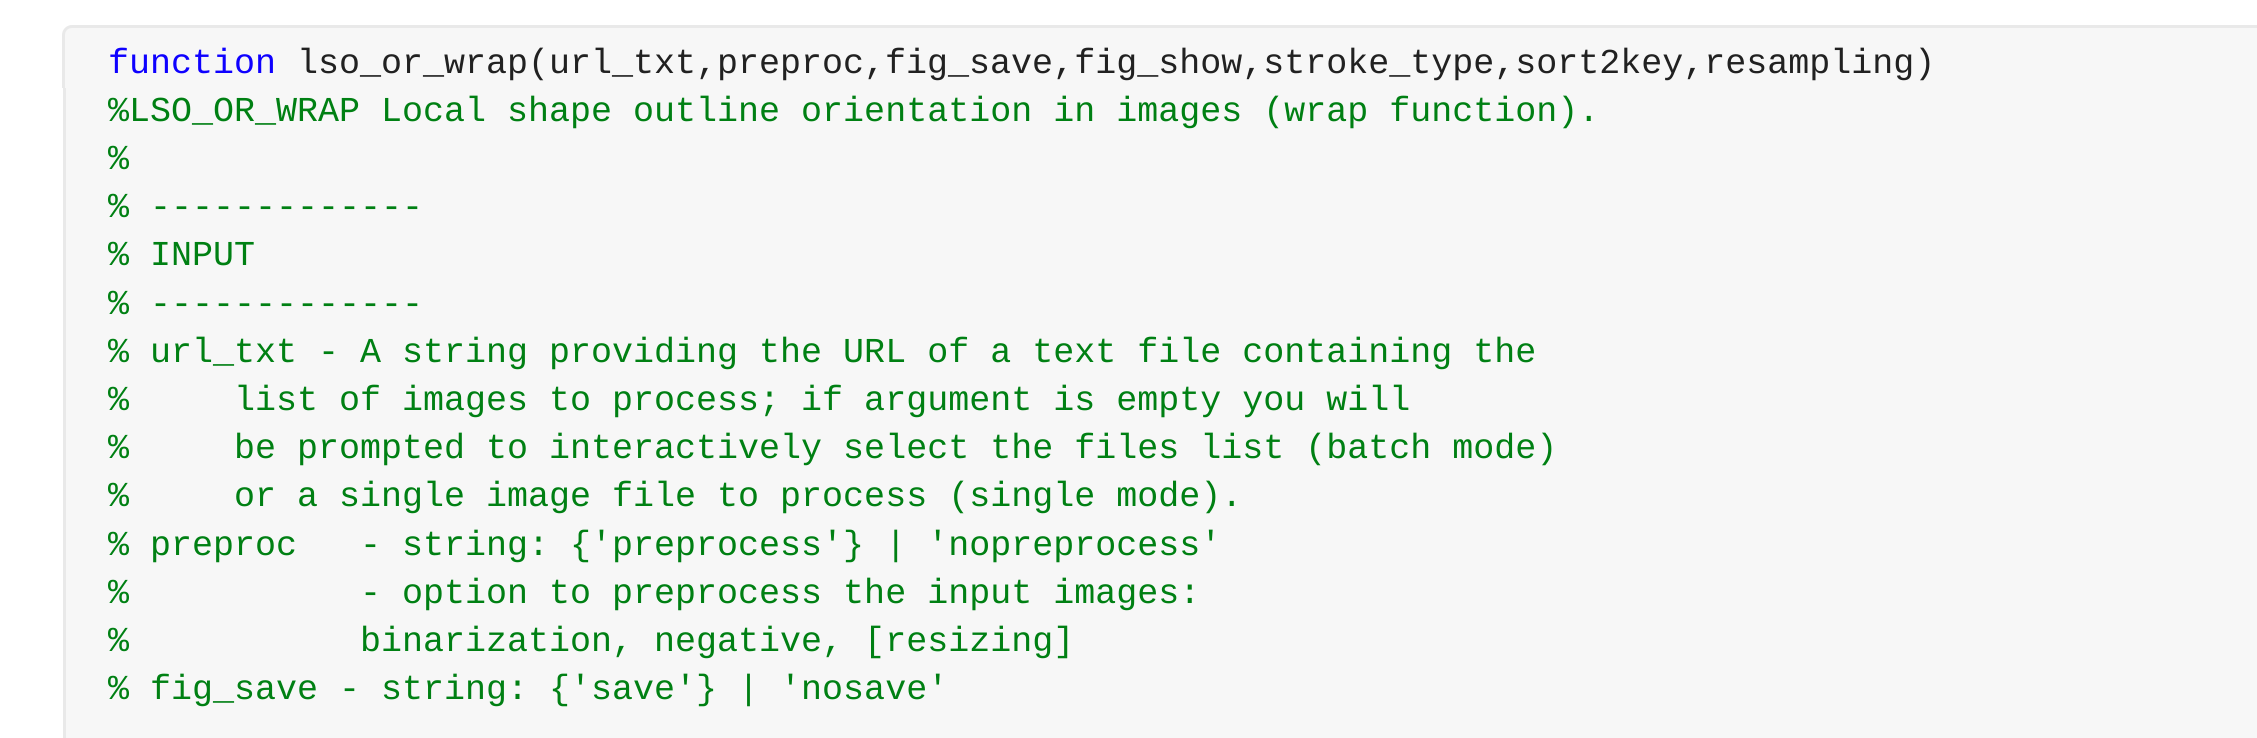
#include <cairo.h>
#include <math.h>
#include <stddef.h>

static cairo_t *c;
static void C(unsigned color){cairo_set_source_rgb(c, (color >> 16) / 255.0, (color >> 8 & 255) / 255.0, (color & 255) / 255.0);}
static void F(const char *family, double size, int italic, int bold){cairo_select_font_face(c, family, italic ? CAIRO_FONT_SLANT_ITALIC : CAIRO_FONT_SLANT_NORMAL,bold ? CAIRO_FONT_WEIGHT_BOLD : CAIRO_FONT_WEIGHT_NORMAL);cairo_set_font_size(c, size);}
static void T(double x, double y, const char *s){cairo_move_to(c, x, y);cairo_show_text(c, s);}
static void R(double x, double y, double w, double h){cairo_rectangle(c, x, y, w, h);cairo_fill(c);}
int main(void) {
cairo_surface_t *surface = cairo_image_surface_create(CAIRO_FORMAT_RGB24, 2257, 738);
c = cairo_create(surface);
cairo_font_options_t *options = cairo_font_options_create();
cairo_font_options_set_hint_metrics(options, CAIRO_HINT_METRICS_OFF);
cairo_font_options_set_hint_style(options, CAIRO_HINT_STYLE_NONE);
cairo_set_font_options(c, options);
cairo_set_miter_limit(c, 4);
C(0xffffff);
cairo_paint(c);
C(0xf7f7f7);
cairo_new_path(c);
cairo_move_to(c,73,25);
cairo_line_to(c,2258,25);
cairo_line_to(c,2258,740);
cairo_line_to(c,63,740);
cairo_line_to(c,63,35);
cairo_curve_to(c,63,29.5,67.5,25,73,25);
cairo_close_path(c);
cairo_fill(c);
C(0xe9e9e9);
cairo_set_fill_rule(c,CAIRO_FILL_RULE_EVEN_ODD);
cairo_new_path(c);
cairo_move_to(c,72,25);
cairo_line_to(c,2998,25);
cairo_curve_to(c,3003,25,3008,29,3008,35);
cairo_line_to(c,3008,88);
cairo_line_to(c,62,88);
cairo_line_to(c,62,35);
cairo_curve_to(c,62,29,67,25,72,25);
cairo_close_path(c);
cairo_move_to(c,72,28);
cairo_line_to(c,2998,28);
cairo_curve_to(c,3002,28,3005,31,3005,35);
cairo_line_to(c,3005,88);
cairo_line_to(c,65,88);
cairo_line_to(c,65,35);
cairo_curve_to(c,65,31,68,28,72,28);
cairo_close_path(c);
cairo_fill(c);
F("Liberation Mono",35,0,0);
C(0x0e00ff);
T(108,73,"function");
C(0x212121);
T(297,73,"lso_or_wrap(url_txt,preproc,fig_save,fig_show,stroke_type,sort2key,resampling)");
C(0xe9e9e9);
R(63,88,3,650);
C(0x008013);
T(108,121,"%LSO_OR_WRAP Local shape outline orientation in images (wrap function).");
T(108,169,"%");
T(108,217,"% -------------");
T(108,265,"% INPUT");
T(108,314,"% -------------");
T(108,362,"% url_txt - A string providing the URL of a text file containing the");
T(108,410,"%     list of images to process; if argument is empty you will");
T(108,458,"%     be prompted to interactively select the files list (batch mode)");
T(108,506,"%     or a single image file to process (single mode).");
T(108,555,"% preproc   - string: {'preprocess'} | 'nopreprocess'");
T(108,603,"%           - option to preprocess the input images:");
T(108,651,"%           binarization, negative, [resizing]");
T(108,699,"% fig_save - string: {'save'} | 'nosave'");
cairo_surface_write_to_png(surface, "o.png");
cairo_font_options_destroy(options);
cairo_destroy(c);
cairo_surface_destroy(surface);
return 0;
}
